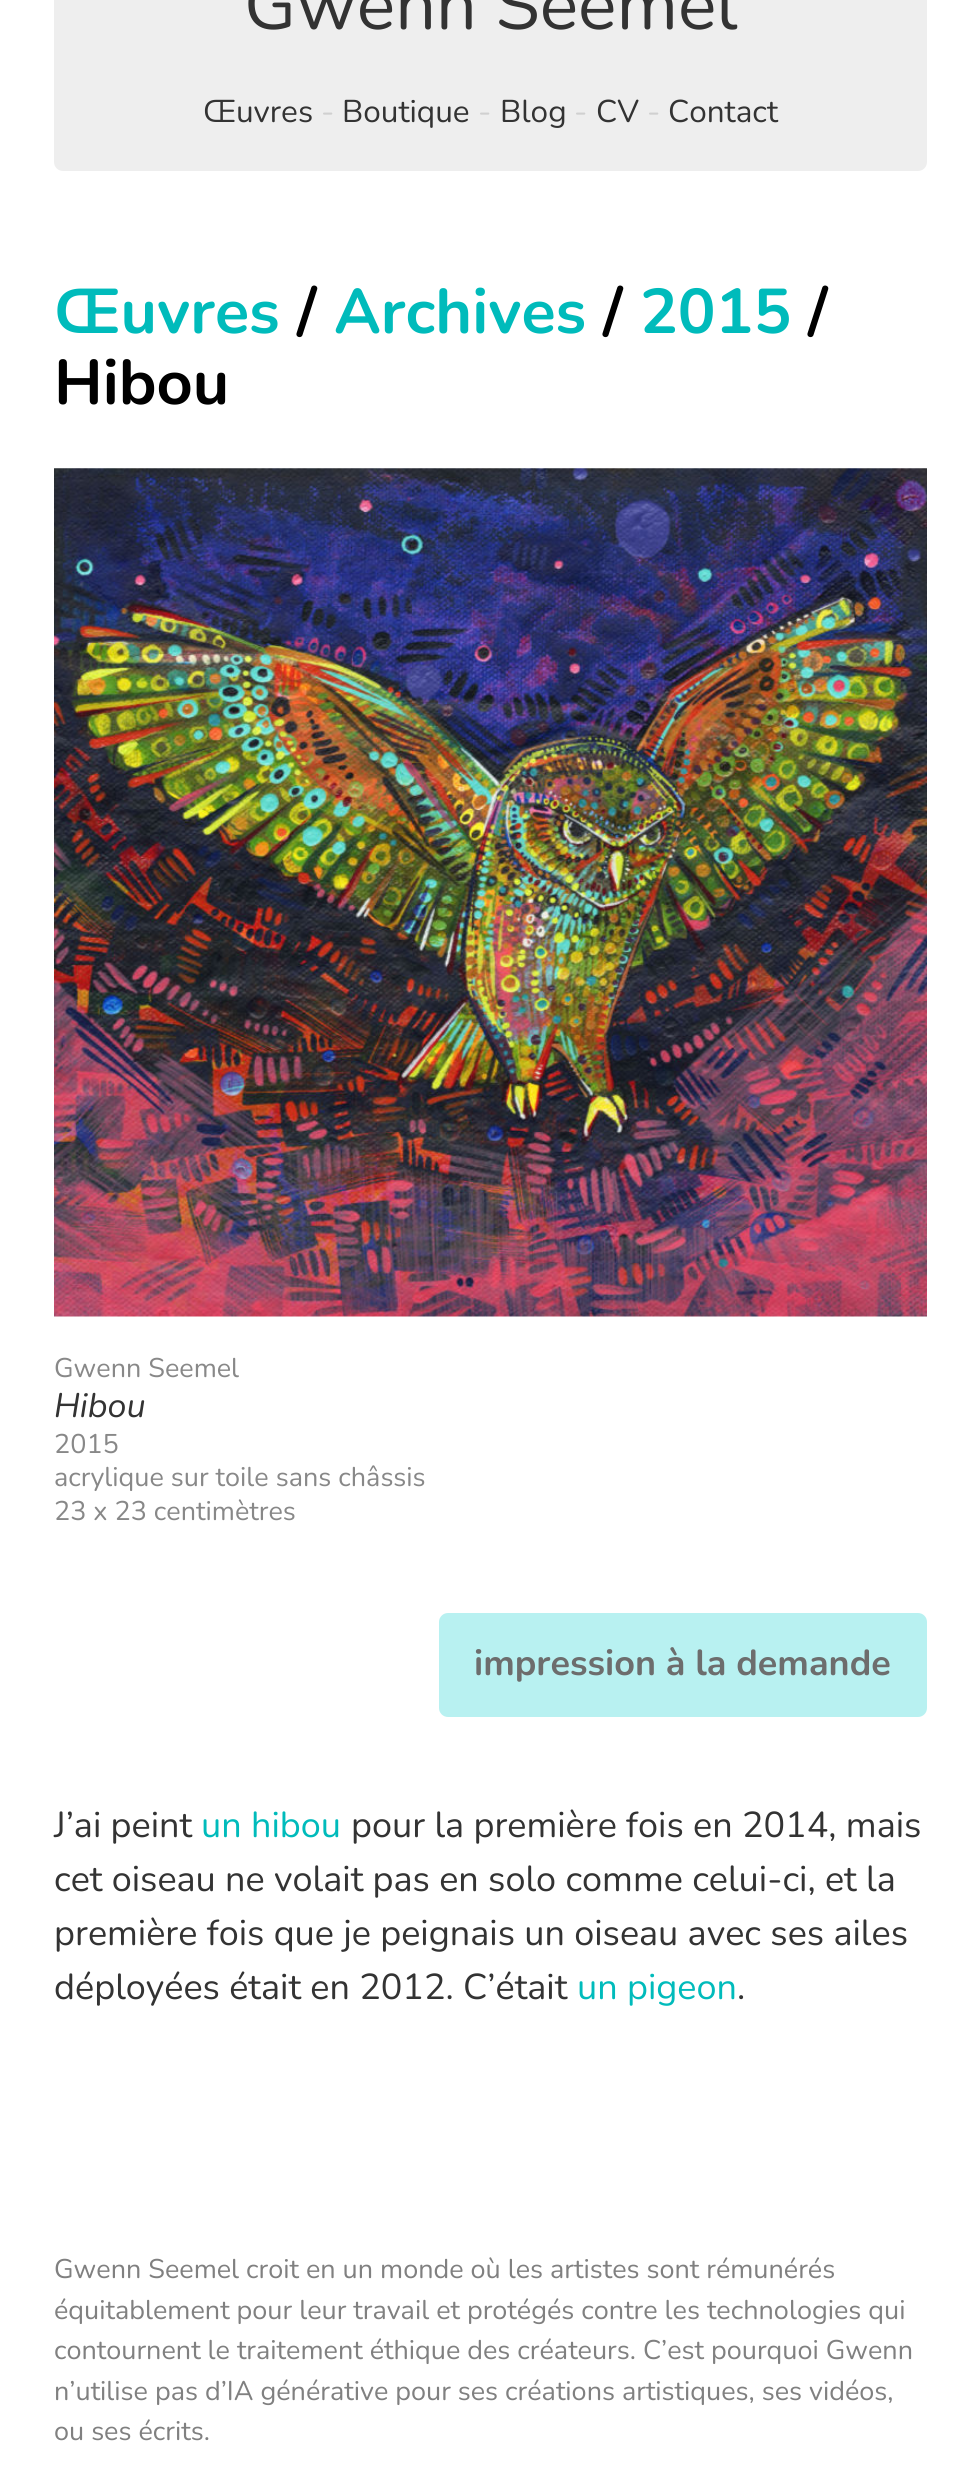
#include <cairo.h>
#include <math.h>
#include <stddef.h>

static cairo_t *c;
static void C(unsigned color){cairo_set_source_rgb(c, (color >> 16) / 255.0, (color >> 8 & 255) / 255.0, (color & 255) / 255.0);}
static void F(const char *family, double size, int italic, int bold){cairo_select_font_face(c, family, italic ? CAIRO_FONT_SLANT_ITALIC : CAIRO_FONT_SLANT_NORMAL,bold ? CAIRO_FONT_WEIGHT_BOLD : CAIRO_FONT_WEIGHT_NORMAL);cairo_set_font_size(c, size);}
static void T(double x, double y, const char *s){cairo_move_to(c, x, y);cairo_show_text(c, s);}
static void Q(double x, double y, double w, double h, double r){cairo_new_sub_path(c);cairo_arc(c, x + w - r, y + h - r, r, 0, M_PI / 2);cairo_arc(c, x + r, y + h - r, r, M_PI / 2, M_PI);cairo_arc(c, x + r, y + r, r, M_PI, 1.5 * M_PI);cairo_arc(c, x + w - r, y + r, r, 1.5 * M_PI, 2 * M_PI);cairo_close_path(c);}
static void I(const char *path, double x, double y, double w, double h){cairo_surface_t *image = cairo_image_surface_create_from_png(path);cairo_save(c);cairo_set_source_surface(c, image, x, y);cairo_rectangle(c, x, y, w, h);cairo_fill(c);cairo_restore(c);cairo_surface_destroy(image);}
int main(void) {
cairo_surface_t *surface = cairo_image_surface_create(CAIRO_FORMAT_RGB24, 980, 2477);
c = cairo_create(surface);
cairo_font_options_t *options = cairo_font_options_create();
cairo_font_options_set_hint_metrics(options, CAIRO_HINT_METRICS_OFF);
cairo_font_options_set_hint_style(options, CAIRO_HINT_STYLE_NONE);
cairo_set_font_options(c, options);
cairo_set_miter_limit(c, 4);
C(0xffffff);
cairo_paint(c);
C(0xeeeeee);
Q(54,-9,873,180,9);
cairo_fill(c);
F("Nunito",72,0,0);
C(0x333333);
T(244,29,"Gwenn Seemel");
F("Nunito",31.5,0,0);
T(203,122,"Œuvres");
C(0xd0d0d0);
T(321,122,"-");
C(0x333333);
T(342,122,"Boutique");
C(0xd0d0d0);
T(478,122,"-");
C(0x333333);
T(500,122,"Blog");
C(0xd0d0d0);
T(574,122,"-");
C(0x333333);
T(596,122,"CV");
C(0xd0d0d0);
T(647,122,"-");
C(0x333333);
T(668,122,"Contact");
F("Nunito",63,0,1);
C(0x00bbbb);
T(54,333,"Œuvres");
C(0x000000);
T(297,333,"/");
C(0x00bbbb);
T(334,333,"Archives");
C(0x000000);
T(603,333,"/");
C(0x00bbbb);
T(640,333,"2015");
C(0x000000);
T(808,333,"/");
T(54,404,"Hibou");
I("1.png",54,468,873,849);
F("Nunito",27,0,0);
C(0x888888);
T(54,1377,"Gwenn Seemel");
F("Nunito ExtraLight",34,1,0);
C(0x333333);
T(54,1417,"Hibou");
F("Nunito",27,0,0);
C(0x888888);
T(54,1453,"2015");
T(54,1486,"acrylique sur toile sans châssis");
T(54,1520,"23 x 23 centimètres");
C(0xb8f1f1);
Q(439,1613,488,104,9);
cairo_fill(c);
F("Nunito",36,0,1);
C(0x6d6d6d);
T(474,1675,"impression à la demande");
F("Nunito",36,0,0);
C(0x333333);
T(54,1837,"J’ai peint");
C(0x00bbbb);
T(201,1837,"un hibou");
C(0x333333);
T(351,1837,"pour la première fois en 2014, mais");
T(54,1891,"cet oiseau ne volait pas en solo comme celui-ci, et la");
T(54,1945,"première fois que je peignais un oiseau avec ses ailes");
T(54,1999,"déployées était en 2012. C’était");
C(0x00bbbb);
T(577,1999,"un pigeon");
C(0x333333);
T(737,1999,".");
F("Nunito",27,0,0);
C(0x808080);
T(54,2278,"Gwenn Seemel croit en un monde où les artistes sont rémunérés");
T(54,2319,"équitablement pour leur travail et protégés contre les technologies qui");
T(54,2359,"contournent le traitement éthique des créateurs. C’est pourquoi Gwenn");
T(54,2400,"n’utilise pas d’IA générative pour ses créations artistiques, ses vidéos,");
T(54,2440,"ou ses écrits.");
cairo_surface_write_to_png(surface, "o.png");
cairo_font_options_destroy(options);
cairo_destroy(c);
cairo_surface_destroy(surface);
return 0;
}
